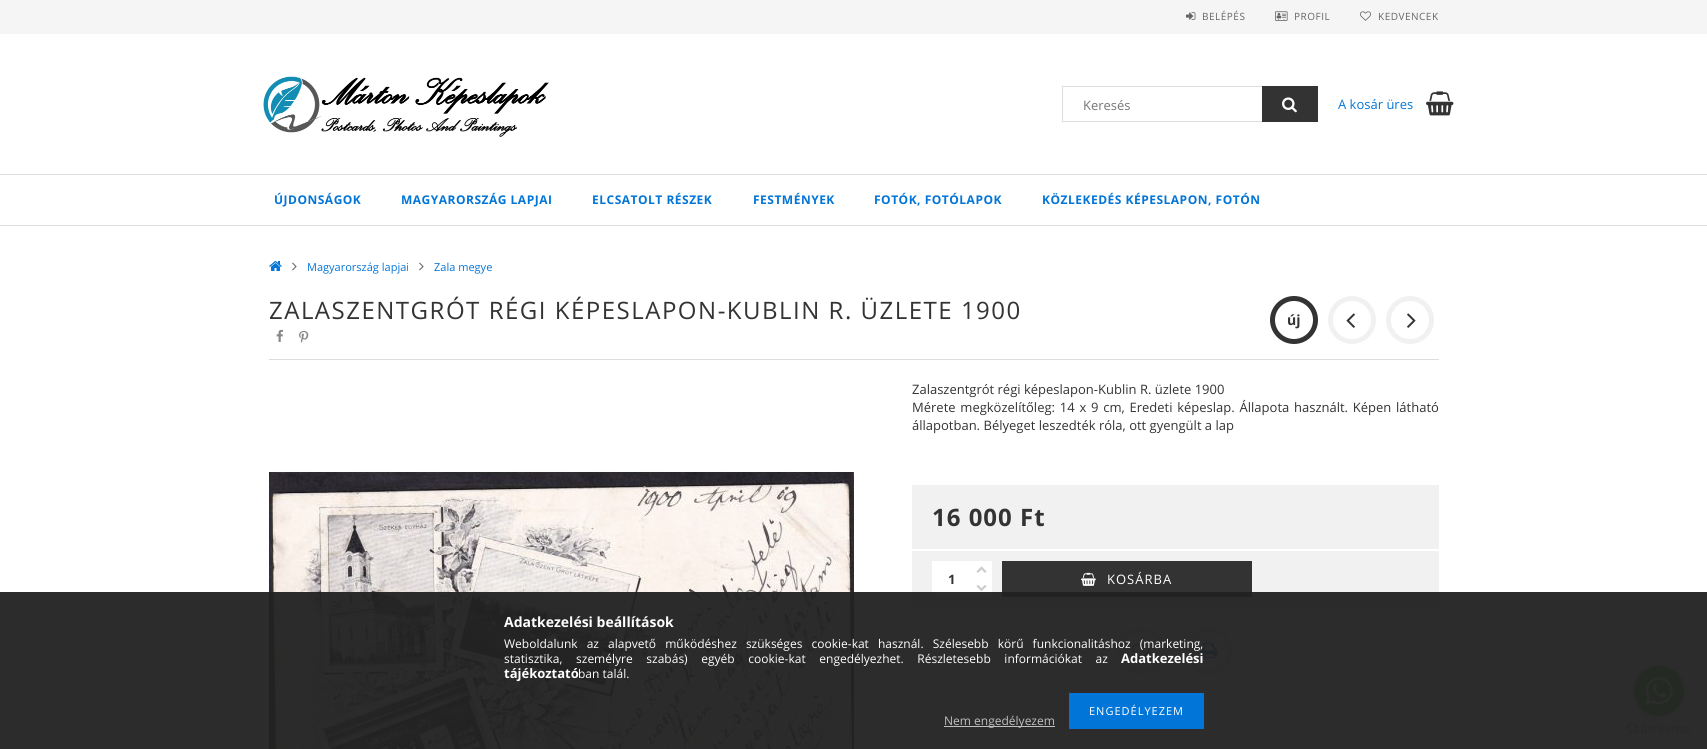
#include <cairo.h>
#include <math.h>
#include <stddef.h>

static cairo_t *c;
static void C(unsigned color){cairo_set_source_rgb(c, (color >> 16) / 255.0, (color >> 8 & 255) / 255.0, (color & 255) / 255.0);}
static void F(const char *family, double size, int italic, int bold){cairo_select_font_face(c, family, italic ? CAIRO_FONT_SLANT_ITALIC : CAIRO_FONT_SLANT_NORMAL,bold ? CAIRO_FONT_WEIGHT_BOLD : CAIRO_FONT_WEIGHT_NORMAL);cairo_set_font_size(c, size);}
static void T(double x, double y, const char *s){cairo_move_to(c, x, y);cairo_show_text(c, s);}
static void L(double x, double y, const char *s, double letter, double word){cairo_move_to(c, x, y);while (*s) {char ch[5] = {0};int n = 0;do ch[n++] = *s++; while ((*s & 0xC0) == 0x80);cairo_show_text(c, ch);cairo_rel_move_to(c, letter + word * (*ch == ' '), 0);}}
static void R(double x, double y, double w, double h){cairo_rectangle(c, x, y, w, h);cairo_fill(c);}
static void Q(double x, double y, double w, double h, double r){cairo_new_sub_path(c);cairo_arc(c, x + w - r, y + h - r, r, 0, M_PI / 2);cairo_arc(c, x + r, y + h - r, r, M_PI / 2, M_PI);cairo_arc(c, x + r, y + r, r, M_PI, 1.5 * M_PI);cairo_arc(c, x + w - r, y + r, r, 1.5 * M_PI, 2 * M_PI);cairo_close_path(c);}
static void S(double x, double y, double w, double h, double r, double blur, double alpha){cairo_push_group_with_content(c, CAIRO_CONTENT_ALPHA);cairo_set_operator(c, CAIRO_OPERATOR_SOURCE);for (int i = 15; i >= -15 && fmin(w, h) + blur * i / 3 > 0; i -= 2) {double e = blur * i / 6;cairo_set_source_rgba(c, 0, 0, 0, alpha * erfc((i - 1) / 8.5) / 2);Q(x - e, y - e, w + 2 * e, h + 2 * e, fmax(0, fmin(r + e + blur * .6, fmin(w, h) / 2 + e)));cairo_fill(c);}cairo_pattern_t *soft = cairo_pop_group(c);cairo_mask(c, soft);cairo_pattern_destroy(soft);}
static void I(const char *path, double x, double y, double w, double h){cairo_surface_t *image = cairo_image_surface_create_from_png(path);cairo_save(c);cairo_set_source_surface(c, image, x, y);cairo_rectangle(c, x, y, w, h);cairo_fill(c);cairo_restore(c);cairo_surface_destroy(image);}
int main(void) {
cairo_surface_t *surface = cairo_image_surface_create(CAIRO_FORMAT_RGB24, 1707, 749);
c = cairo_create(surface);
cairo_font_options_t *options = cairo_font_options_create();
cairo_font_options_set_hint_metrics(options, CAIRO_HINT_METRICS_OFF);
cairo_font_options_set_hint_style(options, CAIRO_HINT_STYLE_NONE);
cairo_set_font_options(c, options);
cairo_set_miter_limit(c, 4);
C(0xffffff);
cairo_paint(c);
C(0xf5f5f5);
R(0,0,1707,34);
I("1.png",1186,12,10,8);
F("Open Sans",10,0,0);
C(0x666666);
L(1202,20,"BELÉPÉS",.5,0);
I("2.png",1275,11,13,10);
L(1294,20,"PROFIL",.5,0);
I("3.png",1360,11,11,10);
L(1378,20,"KEDVENCEK",.5,0);
I("4.png",263,76,286,61);
cairo_rectangle(c,1062.5,86.5,255,35);
C(0xdddddd);
cairo_set_line_width(c,1);
cairo_stroke(c);
F("Open Sans",13,0,0);
C(0x757575);
T(1083,110,"Keresés");
C(0x333333);
R(1262,86,56,36);
I("5.png",1282,97,15,16);
C(0x0275d8);
T(1338,109,"A kosár üres");
I("6.png",1426,91,28,25);
C(0xdddddd);
R(0,174,1707,1);
R(0,225,1707,1);
F("Open Sans",12,0,1);
C(0x0275d8);
L(274,204,"ÚJDONSÁGOK",.5,0);
L(401,204,"MAGYARORSZÁG LAPJAI",.5,0);
L(592,204,"ELCSATOLT RÉSZEK",.5,0);
L(753,204,"FESTMÉNYEK",.5,0);
L(874,204,"FOTÓK, FOTÓLAPOK",.5,0);
L(1042,204,"KÖZLEKEDÉS KÉPESLAPON, FOTÓN",.5,0);
I("7.png",269,261,13,10);
I("8.png",292,262,5,9);
F("Open Sans",11,0,0);
T(307,271,"Magyarország lapjai");
I("8.png",419,262,5,9);
T(434,271,"Zala megye");
C(0xdddddd);
R(269,359,1170,1);
F("Open Sans",24,0,0);
C(0x333333);
L(269,319,"ZALASZENTGRÓT RÉGI KÉPESLAPON-KUBLIN R. ÜZLETE 1900",1.5,0);
I("9.png",276,329,7,13);
I("10.png",299,330,10,13);
cairo_arc(c,1294,320,21.5,0,2 * M_PI);
cairo_set_line_width(c,5);
cairo_stroke(c);
F("Open Sans",14,0,1);
T(1287,325,"új");
cairo_new_path(c);
cairo_arc(c,1352,320,21.5,0,2 * M_PI);
C(0xf1f1f1);
cairo_stroke(c);
I("11.png",1346,313,9,15);
cairo_arc(c,1410,320,21.5,0,2 * M_PI);
cairo_stroke(c);
I("12.png",1407,313,9,15);
I("13.png",269,470,585,279);
F("Open Sans",13,0,0);
C(0x333333);
T(912,394,"Zalaszentgrót régi képeslapon-Kublin R. üzlete 1900");
L(912,412,"Mérete megközelítőleg: 14 x 9 cm, Eredeti képeslap. Állapota használt. Képen látható",0,1.4);
T(912,430,"állapotban. Bélyeget leszedték róla, ott gyengült a lap");
C(0xf1f1f1);
R(912,485,527,64);
F("Open Sans",24,0,1);
C(0x333333);
L(932,526,"16 000 Ft",1,0);
C(0xf1f1f1);
R(912,551,527,56);
C(0xffffff);
R(932,561,40,36);
F("Open Sans",13,0,1);
C(0x333333);
T(948,584,"1");
C(0xffffff);
R(972,561,20,36);
I("14.png",976,566,11,7);
I("15.png",976,585,11,7);
C(0x333333);
R(1002,561,250,36);
I("16.png",1081,572,15,14);
F("Open Sans",13,0,0);
C(0xffffff);
L(1107,584,"KOSÁRBA",1,0);
cairo_new_path(c);
cairo_arc(c,1141,651,21.5,0,2 * M_PI);
C(0xf1f1f1);
cairo_stroke(c);
I("17.png",1132,643,18,17);
cairo_arc(c,1209,651,21.5,0,2 * M_PI);
cairo_stroke(c);
I("18.png",1200,642,18,17);
I("20.png",1627,723,64,11);
C(0x888888);
S(1634,667,50,50,25,3.5,.4);
C(0x4dc247);
cairo_arc(c,1659,691,25,0,2 * M_PI);
cairo_fill(c);
I("19.png",1645,677,28,28);
cairo_set_source_rgba(c,0.133,0.133,0.133,0.95);
R(0,592,1707,157);
F("Open Sans",14,0,1);
C(0xffffff);
T(504,627,"Adatkezelési beállítások");
F("Open Sans",12,0,0);
L(504,648,"Weboldalunk az alapvető működéshez szükséges cookie-kat használ. Szélesebb körű funkcionalitáshoz (marketing,",0,6);
L(504,663,"statisztika, személyre szabás) egyéb cookie-kat engedélyezhet. Részletesebb információkat az",0,10.5);
F("Open Sans",13,0,1);
T(1121,663,"Adatkezelési");
T(504,678,"tájékoztató");
F("Open Sans",12,0,0);
T(578,678,"ban talál.");
C(0x0275d8);
R(1069,693,135,36);
F("Open Sans",11,0,0);
C(0xffffff);
L(1089,715,"ENGEDÉLYEZEM",1,0);
C(0xc0c0c0);
R(944,726,111,1);
F("Open Sans",12,0,0);
T(944,725,"Nem engedélyezem");
cairo_surface_write_to_png(surface, "o.png");
cairo_font_options_destroy(options);
cairo_destroy(c);
cairo_surface_destroy(surface);
return 0;
}
